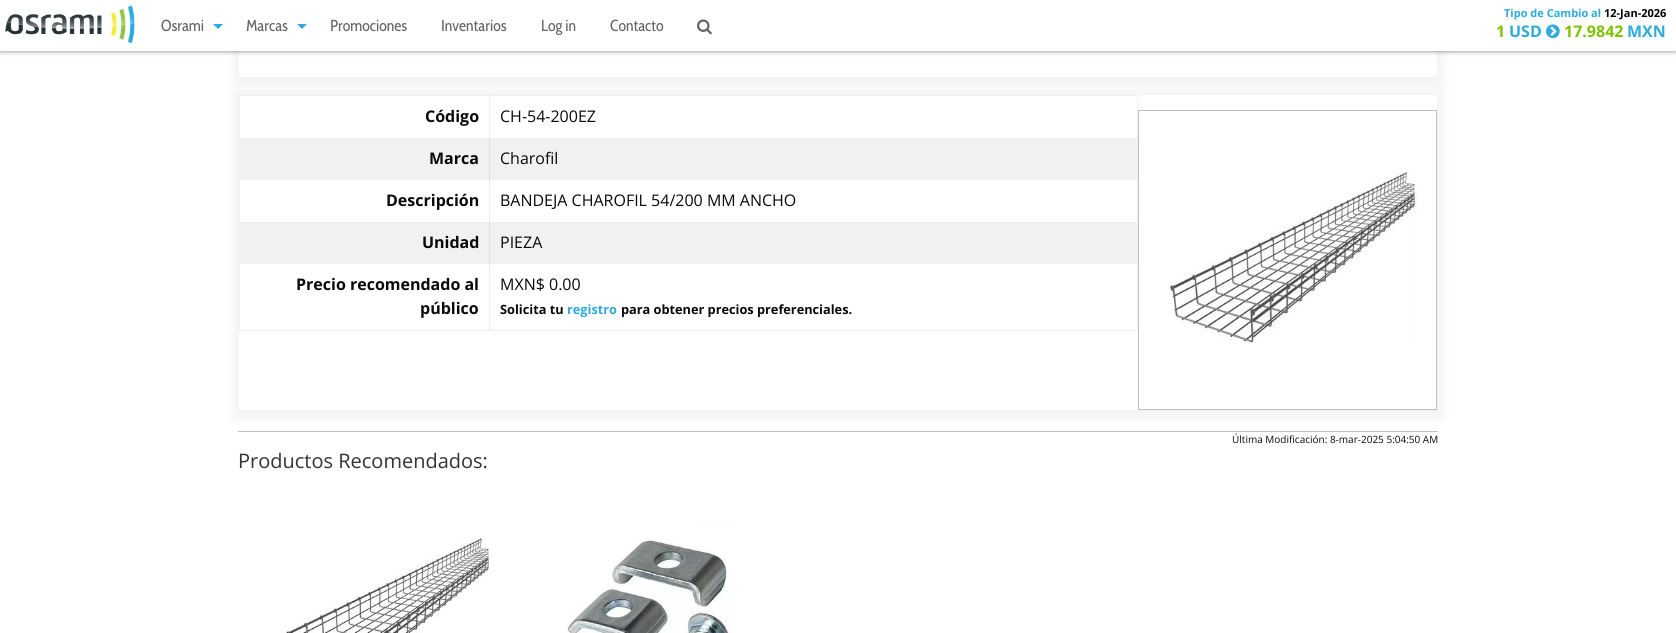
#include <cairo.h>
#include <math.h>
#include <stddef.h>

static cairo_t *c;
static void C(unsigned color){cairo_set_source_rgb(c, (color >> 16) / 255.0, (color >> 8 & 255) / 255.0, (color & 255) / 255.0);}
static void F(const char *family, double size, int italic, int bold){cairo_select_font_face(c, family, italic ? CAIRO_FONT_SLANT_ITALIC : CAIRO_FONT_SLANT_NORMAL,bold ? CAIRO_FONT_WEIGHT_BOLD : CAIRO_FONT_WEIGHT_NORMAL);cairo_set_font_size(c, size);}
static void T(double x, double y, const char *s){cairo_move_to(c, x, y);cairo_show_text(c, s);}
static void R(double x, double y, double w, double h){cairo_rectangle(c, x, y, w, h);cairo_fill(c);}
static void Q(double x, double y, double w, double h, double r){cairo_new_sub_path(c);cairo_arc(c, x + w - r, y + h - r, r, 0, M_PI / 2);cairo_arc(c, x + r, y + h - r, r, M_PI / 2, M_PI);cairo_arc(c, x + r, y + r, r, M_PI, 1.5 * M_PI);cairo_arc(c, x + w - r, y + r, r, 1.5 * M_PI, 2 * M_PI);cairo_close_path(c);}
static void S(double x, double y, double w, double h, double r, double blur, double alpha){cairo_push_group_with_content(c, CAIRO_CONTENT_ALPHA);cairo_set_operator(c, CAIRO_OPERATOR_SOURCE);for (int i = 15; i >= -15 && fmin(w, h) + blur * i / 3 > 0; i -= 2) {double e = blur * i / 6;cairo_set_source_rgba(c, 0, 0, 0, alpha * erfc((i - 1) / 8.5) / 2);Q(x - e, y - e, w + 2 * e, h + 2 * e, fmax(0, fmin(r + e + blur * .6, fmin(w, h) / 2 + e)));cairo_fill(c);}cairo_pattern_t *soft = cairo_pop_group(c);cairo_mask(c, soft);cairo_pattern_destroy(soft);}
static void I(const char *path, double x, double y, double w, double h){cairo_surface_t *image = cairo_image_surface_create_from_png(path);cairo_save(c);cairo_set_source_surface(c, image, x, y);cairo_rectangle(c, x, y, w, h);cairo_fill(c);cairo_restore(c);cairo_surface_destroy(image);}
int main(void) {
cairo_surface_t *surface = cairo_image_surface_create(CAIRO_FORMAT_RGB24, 1676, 633);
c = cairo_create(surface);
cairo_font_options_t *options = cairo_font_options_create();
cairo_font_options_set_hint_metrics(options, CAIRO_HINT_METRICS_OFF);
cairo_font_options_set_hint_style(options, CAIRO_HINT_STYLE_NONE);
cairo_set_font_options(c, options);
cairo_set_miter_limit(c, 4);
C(0xffffff);
cairo_paint(c);
C(0xeeeeee);
R(489,180,1,43);
C(0xdedede);
R(489,180,1,1);
C(0xeeeeee);
R(489,264,1,67);
C(0xdedede);
R(489,264,1,1);
cairo_save(c);
cairo_set_fill_rule(c,CAIRO_FILL_RULE_EVEN_ODD);
cairo_new_path(c);
cairo_move_to(c,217,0);
cairo_line_to(c,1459,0);
cairo_line_to(c,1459,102);
cairo_line_to(c,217,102);
cairo_close_path(c);
cairo_move_to(c,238,-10);
cairo_line_to(c,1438,-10);
cairo_line_to(c,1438,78);
cairo_line_to(c,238,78);
cairo_close_path(c);
cairo_clip(c);
C(0x000000);
S(233,-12,1210,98,0,5,.05);
cairo_restore(c);
cairo_rectangle(c,238.5,-.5,1199,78);
C(0xf2f2f2);
cairo_set_line_width(c,1);
cairo_stroke(c);
C(0x000000);
S(0,0,1676,51,0,2.5,.5);
C(0xffffff);
R(0,0,1676,51);
I("1.png",5,5,130,38);
F("Cabin Condensed",16,0,0);
C(0x666666);
T(161,31,"Osrami");
C(0x2dabdd);
cairo_new_path(c);
cairo_move_to(c,213,24);
cairo_line_to(c,223,24);
cairo_line_to(c,218,29);
cairo_close_path(c);
cairo_fill(c);
C(0x666666);
T(246,31,"Marcas");
C(0x2dabdd);
cairo_new_path(c);
cairo_move_to(c,297,24);
cairo_line_to(c,307,24);
cairo_line_to(c,302,29);
cairo_close_path(c);
cairo_fill(c);
C(0x666666);
T(330,31,"Promociones");
T(441,31,"Inventarios");
T(541,31,"Log in");
T(610,31,"Contacto");
I("2.png",697,19,15,16);
F("Open Sans",11,0,1);
C(0x2dabdd);
T(1504,17,"Tipo de Cambio al");
C(0x000000);
T(1604,17,"12-Jan-2026");
F("Open Sans",16,0,1);
C(0x81c200);
T(1496,37,"1");
C(0x2dabdd);
T(1509,37,"USD");
I("3.png",1546,24,14,15);
C(0x81c200);
T(1564,37,"17.9842");
C(0x2dabdd);
T(1627,37,"MXN");
cairo_save(c);
cairo_set_fill_rule(c,CAIRO_FILL_RULE_EVEN_ODD);
cairo_new_path(c);
cairo_move_to(c,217,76);
cairo_line_to(c,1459,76);
cairo_line_to(c,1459,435);
cairo_line_to(c,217,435);
cairo_close_path(c);
cairo_move_to(c,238,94);
cairo_line_to(c,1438,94);
cairo_line_to(c,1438,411);
cairo_line_to(c,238,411);
cairo_close_path(c);
cairo_clip(c);
C(0x000000);
S(233,92,1210,327,0,5,.05);
cairo_restore(c);
cairo_rectangle(c,238.5,94.5,1199,316);
C(0xf2f2f2);
cairo_stroke(c);
C(0xf1f1f1);
R(239,95,899,1);
R(1137,95,1,236);
R(239,330,899,1);
C(0xe1e1e1);
R(489,330,1,1);
C(0xf1f1f1);
R(239,95,1,236);
R(240,138,897,42);
C(0xe1e1e1);
R(489,138,1,42);
cairo_set_source_rgba(c,0.169,0.169,0.169,0.08);
R(489,95,1,44);
C(0x0a0a0a);
T(425,122,"Código");
F("Open Sans",16,0,0);
T(500,122,"CH-54-200EZ");
F("Open Sans",16,0,1);
T(429,164,"Marca");
F("Open Sans",16,0,0);
T(500,164,"Charofil");
F("Open Sans",16,0,1);
T(386,206,"Descripción");
F("Open Sans",16,0,0);
T(500,206,"BANDEJA CHAROFIL 54/200 MM ANCHO");
C(0xf1f1f1);
R(240,222,897,42);
C(0xe1e1e1);
R(489,222,1,42);
C(0xd2d2d2);
R(489,222,1,1);
F("Open Sans",16,0,1);
C(0x0a0a0a);
T(422,248,"Unidad");
F("Open Sans",16,0,0);
T(500,248,"PIEZA");
F("Open Sans",16,0,1);
T(296,290,"Precio recomendado al");
T(420,314,"público");
F("Open Sans",16,0,0);
T(500,290,"MXN$ 0.00");
F("Open Sans",12.75,0,1);
T(500,314,"Solicita tu");
C(0x2dabdd);
T(567,314,"registro");
C(0x0a0a0a);
T(621,314,"para obtener precios preferenciales.");
cairo_rectangle(c,1138.5,110.5,298,299);
C(0xbfbfbf);
cairo_stroke(c);
I("4.png",1170,171,248,172);
R(238,431,1200,1);
F("Open Sans",10,0,0);
C(0x0a0a0a);
T(1232,443,"Última Modificación: 8-mar-2025 5:04:50 AM");
F("Open Sans",20,0,0);
C(0x333333);
T(238,468,"Productos Recomendados:");
I("5.png",281,537,211,96);
I("6.png",565,521,167,112);
cairo_surface_write_to_png(surface, "o.png");
cairo_font_options_destroy(options);
cairo_destroy(c);
cairo_surface_destroy(surface);
return 0;
}
